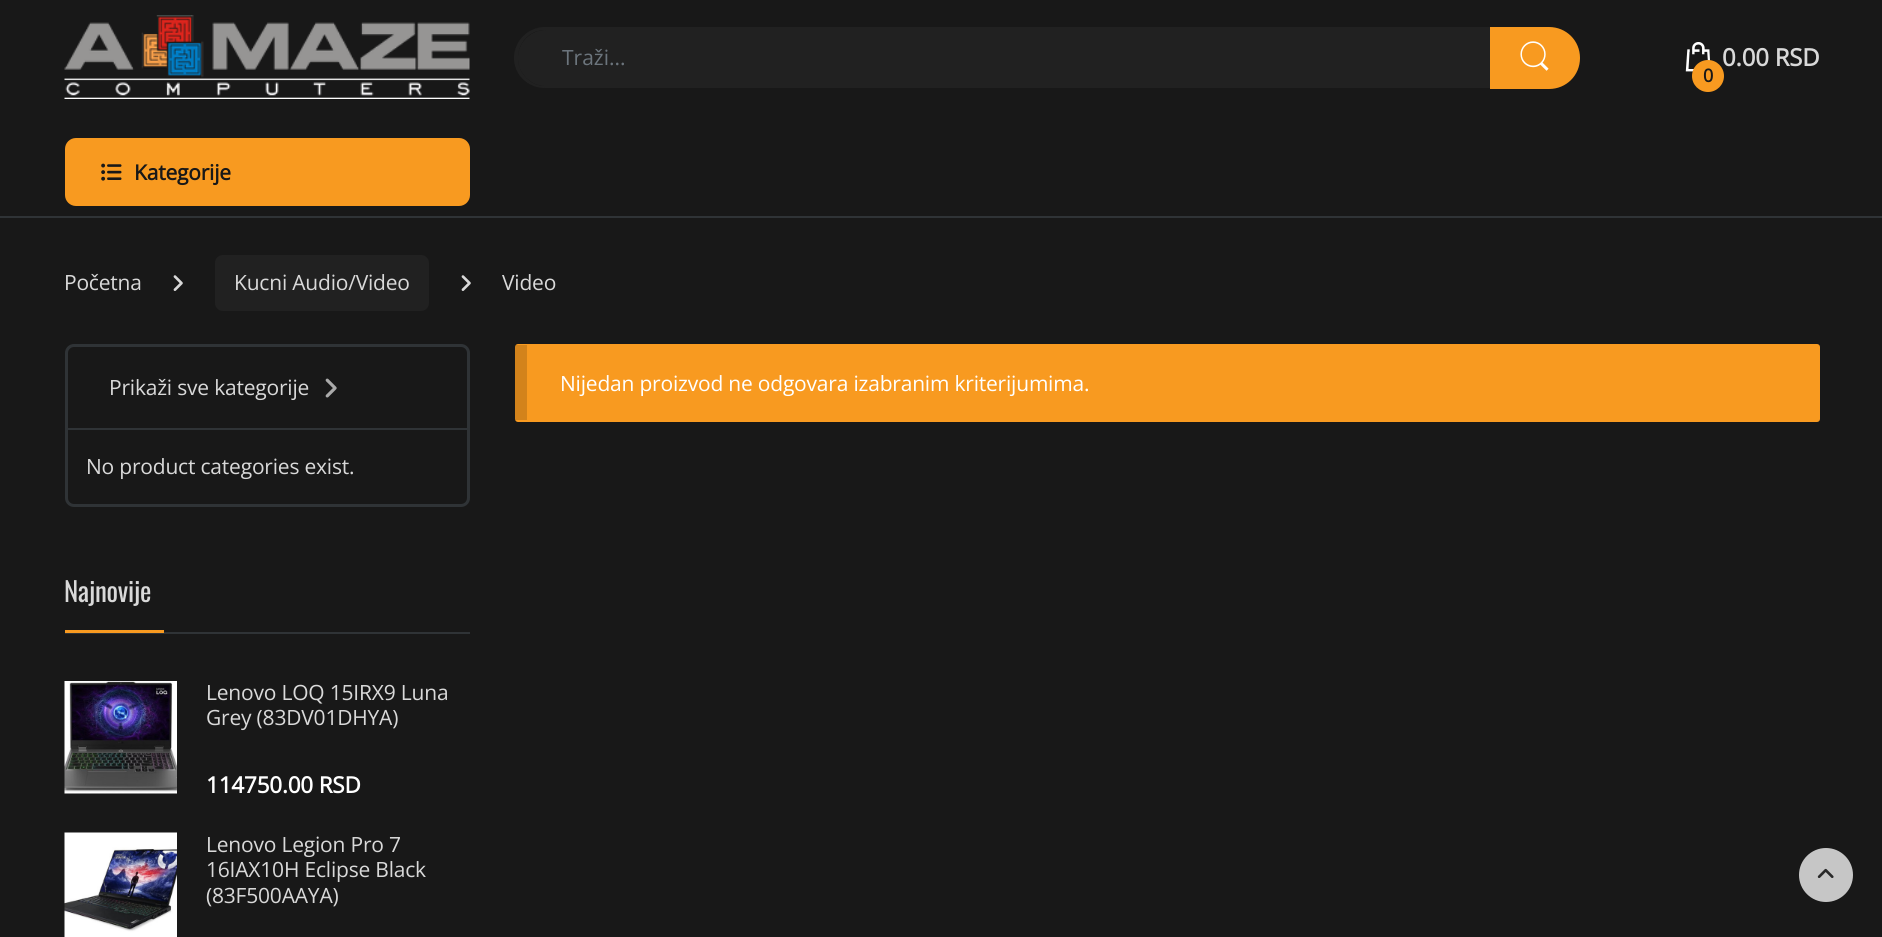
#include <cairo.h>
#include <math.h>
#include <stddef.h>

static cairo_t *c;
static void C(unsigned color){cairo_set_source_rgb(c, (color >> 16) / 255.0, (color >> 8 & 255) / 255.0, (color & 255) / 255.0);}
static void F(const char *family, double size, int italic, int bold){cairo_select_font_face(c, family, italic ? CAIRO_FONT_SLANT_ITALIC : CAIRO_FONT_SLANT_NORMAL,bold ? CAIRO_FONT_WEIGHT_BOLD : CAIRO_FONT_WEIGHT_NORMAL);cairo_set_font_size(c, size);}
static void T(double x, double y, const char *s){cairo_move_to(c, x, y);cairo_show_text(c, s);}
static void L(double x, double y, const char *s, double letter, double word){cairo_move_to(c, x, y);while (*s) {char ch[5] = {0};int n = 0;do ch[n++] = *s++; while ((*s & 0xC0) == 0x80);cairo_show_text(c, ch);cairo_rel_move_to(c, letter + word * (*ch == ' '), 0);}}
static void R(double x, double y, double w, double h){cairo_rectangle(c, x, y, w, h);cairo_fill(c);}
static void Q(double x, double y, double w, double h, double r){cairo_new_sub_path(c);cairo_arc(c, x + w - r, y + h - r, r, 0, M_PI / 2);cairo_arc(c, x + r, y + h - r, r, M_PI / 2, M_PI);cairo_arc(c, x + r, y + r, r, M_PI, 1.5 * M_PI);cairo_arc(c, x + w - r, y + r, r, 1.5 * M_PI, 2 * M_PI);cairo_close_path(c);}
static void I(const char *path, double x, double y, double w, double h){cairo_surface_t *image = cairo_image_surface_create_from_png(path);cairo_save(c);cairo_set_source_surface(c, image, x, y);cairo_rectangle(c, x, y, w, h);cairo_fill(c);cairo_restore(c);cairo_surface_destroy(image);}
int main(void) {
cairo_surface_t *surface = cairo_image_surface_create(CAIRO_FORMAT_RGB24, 1882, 937);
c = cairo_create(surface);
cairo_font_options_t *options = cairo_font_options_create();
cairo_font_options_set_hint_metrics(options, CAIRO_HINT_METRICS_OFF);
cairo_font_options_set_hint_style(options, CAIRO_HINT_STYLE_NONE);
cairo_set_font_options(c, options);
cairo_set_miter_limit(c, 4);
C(0x181818);
cairo_paint(c);
C(0x2f3336);
R(0,216,1882,2);
I("1.png",64,15,406,84);
C(0x212121);
cairo_new_path(c);
cairo_move_to(c,546,30);
cairo_line_to(c,1491,30);
cairo_line_to(c,1491,86);
cairo_line_to(c,546,86);
cairo_curve_to(c,530.5,86,518,73.5,518,58);
cairo_curve_to(c,518,42.5,530.5,30,546,30);
cairo_close_path(c);
cairo_fill(c);
cairo_set_fill_rule(c,CAIRO_FILL_RULE_EVEN_ODD);
cairo_new_path(c);
cairo_move_to(c,545,27);
cairo_line_to(c,1491,27);
cairo_line_to(c,1491,88);
cairo_line_to(c,545,88);
cairo_curve_to(c,528,88,514,75,514,58);
cairo_curve_to(c,514,41,528,27,545,27);
cairo_close_path(c);
cairo_move_to(c,545,30);
cairo_line_to(c,1491,30);
cairo_line_to(c,1491,86);
cairo_line_to(c,545,86);
cairo_curve_to(c,530,86,518,73,518,58);
cairo_curve_to(c,518,42,530,30,545,30);
cairo_close_path(c);
cairo_fill(c);
F("Open Sans",21,0,0);
C(0x6c757d);
T(562,65,"Traži...");
C(0xf89a20);
cairo_new_path(c);
cairo_move_to(c,1491.5,28.5);
cairo_line_to(c,1549,28.5);
cairo_curve_to(c,1565.5,28.5,1578.5,41.5,1578.5,58);
cairo_curve_to(c,1578.5,74.5,1565.5,87.5,1549,87.5);
cairo_line_to(c,1491.5,87.5);
cairo_close_path(c);
cairo_fill_preserve(c);
cairo_set_line_width(c,3);
cairo_stroke(c);
I("2.png",1520,41,29,30);
I("3.png",1685,42,26,30);
F("Open Sans",24,0,1);
C(0xd9d9d9);
L(1722,66,"0.00 RSD",-.2,0);
C(0xf89a20);
cairo_new_path(c);
cairo_arc(c,1708,76,16,0,2 * M_PI);
cairo_fill(c);
F("Open Sans",18,0,1);
C(0x181818);
L(1703,82,"0",-.2,0);
C(0xf89a20);
Q(65,138,405,68,11);
cairo_fill(c);
I("4.png",101,163,21,18);
F("Open Sans",21,0,1);
C(0x181818);
L(134,180,"Kategorije",-.2,0);
F("Open Sans",21,0,0);
C(0xd9d9d9);
L(64,290,"Početna",-.2,0);
I("5.png",173,275,10,16);
C(0x212121);
Q(215,255,214,56,8);
cairo_fill(c);
C(0xd9d9d9);
L(234,290,"Kucni Audio/Video",-.2,0);
I("5.png",461,275,10,16);
L(502,290,"Video",-.2,0);
Q(66.5,345.5,402,160,7.5);
C(0x2f3336);
cairo_stroke(c);
R(68,428,399,2);
C(0xd9d9d9);
L(109,395,"Prikaži sve kategorije",-.2,0);
I("6.png",325,378,12,20);
L(86,474,"No product categories exist.",-.2,0);
C(0x2f3336);
R(65,632,405,2);
F("Oswald",27,0,0);
C(0xd9d9d9);
L(64,602,"Najnovije",-.2,0);
C(0xf89a20);
R(65,630,99,3);
I("7.png",64,681,113,113);
F("Open Sans",21,0,0);
C(0xd9d9d9);
L(206,700,"Lenovo LOQ 15IRX9 Luna",-.2,0);
L(206,725,"Grey (83DV01DHYA)",-.2,0);
F("Open Sans",22.5,0,1);
C(0xffffff);
L(206,793,"114750.00 RSD",-.2,0);
I("8.png",64,832,113,105);
F("Open Sans",21,0,0);
C(0xd9d9d9);
L(206,852,"Lenovo Legion Pro 7",-.2,0);
L(206,877,"16IAX10H Eclipse Black",-.2,0);
L(206,903,"(83F500AAYA)",-.2,0);
C(0xf89a20);
Q(515,344,1305,78,3);
cairo_fill(c);
cairo_set_source_rgba(c,0,0,0,0.15);
R(515,345,12,75);
C(0xffffff);
L(560,391,"Nijedan proizvod ne odgovara izabranim kriterijumima.",-.2,0);
C(0xc6c6c6);
cairo_new_path(c);
cairo_arc(c,1826,875,27,0,2 * M_PI);
cairo_fill(c);
I("9.png",1817,868,17,10);
cairo_surface_write_to_png(surface, "o.png");
cairo_font_options_destroy(options);
cairo_destroy(c);
cairo_surface_destroy(surface);
return 0;
}
